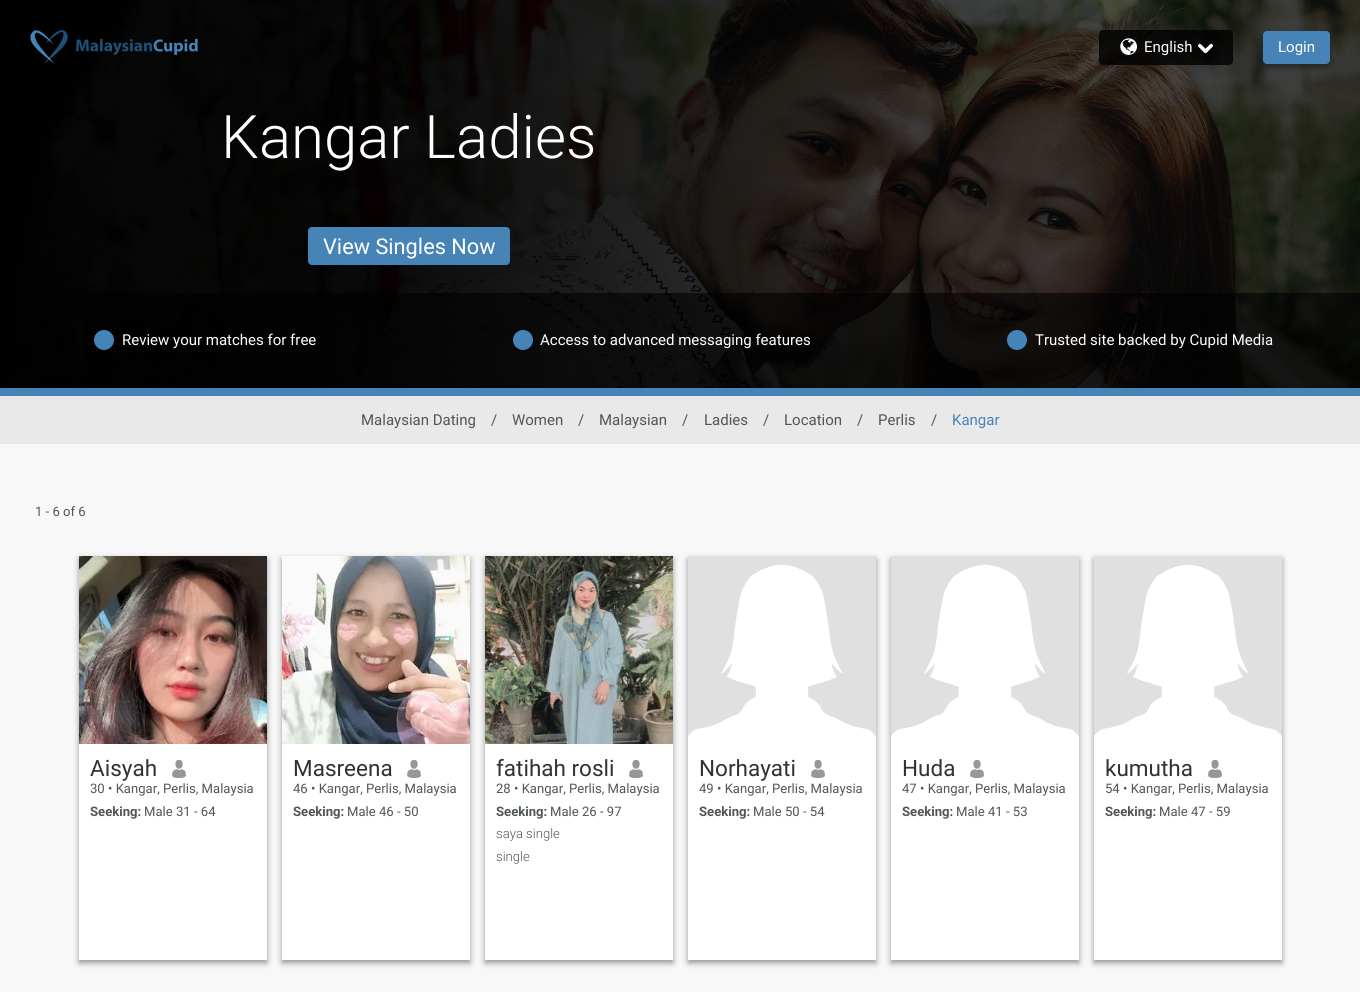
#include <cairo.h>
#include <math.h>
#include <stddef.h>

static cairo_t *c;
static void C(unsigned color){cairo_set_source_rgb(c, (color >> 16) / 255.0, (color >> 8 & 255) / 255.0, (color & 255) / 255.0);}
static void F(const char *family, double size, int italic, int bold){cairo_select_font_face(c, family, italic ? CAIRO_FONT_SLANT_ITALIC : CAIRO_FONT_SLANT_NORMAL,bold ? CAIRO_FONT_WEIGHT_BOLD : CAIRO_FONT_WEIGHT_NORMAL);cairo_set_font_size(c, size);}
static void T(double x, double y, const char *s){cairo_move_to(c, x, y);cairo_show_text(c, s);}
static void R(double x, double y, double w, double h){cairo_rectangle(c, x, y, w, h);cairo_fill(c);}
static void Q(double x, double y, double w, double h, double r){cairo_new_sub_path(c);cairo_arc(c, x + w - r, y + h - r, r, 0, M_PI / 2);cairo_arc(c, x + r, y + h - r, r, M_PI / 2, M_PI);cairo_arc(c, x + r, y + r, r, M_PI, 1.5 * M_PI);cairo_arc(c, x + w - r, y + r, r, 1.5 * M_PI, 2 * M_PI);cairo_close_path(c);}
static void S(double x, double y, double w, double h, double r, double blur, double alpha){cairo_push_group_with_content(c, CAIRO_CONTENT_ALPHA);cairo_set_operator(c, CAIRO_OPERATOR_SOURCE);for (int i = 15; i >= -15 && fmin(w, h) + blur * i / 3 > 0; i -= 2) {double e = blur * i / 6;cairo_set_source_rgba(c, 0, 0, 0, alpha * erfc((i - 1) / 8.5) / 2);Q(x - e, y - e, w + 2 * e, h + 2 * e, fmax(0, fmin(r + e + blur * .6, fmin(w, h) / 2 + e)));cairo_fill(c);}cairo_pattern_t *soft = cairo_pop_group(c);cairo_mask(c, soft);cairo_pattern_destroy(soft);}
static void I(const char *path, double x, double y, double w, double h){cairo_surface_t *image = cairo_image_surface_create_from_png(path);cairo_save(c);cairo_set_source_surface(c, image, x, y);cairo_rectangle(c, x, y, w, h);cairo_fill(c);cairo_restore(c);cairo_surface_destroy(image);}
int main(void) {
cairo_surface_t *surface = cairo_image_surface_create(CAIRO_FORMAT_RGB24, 1360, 992);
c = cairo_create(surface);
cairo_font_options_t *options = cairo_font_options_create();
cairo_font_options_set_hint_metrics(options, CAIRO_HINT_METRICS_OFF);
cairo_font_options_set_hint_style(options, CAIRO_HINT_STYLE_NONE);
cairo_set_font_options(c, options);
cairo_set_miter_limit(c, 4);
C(0xf8f8f8);
cairo_paint(c);
I("5.png",0,0,1360,388);
I("1.png",30,30,38,34);
I("2.png",76,38,122,17);
cairo_set_source_rgba(c,0,0,0,0.8);
Q(1099,30,134,35,4);
cairo_fill(c);
I("3.png",1120,38,17,17);
F("Roboto",15,0,0);
C(0xffffff);
T(1144,52,"English");
I("4.png",1198,43,15,11);
C(0x000000);
S(1263,34,67,33,4,3,.4);
C(0x4684b7);
Q(1263,31,67,33,4);
cairo_fill(c);
C(0xffffff);
T(1278,52,"Login");
F("Roboto Light",60,0,0);
T(221,158,"Kangar Ladies");
C(0x4684b7);
Q(308,227,202,38,4);
cairo_fill(c);
F("Roboto",21.75,0,0);
C(0xffffff);
T(323,254,"View Singles Now");
cairo_set_source_rgba(c,0,0,0,0.6);
R(84,293,1276,95);
C(0x4684b7);
cairo_new_path(c);
cairo_arc(c,104,340,10,0,2 * M_PI);
cairo_fill(c);
F("Roboto",15,0,0);
C(0xffffff);
T(122,345,"Review your matches for free");
C(0x4684b7);
cairo_new_path(c);
cairo_arc(c,523,340,10,0,2 * M_PI);
cairo_fill(c);
C(0xffffff);
T(540,345,"Access to advanced messaging features");
C(0x4684b7);
cairo_new_path(c);
cairo_arc(c,1017,340,10,0,2 * M_PI);
cairo_fill(c);
C(0xffffff);
T(1035,345,"Trusted site backed by Cupid Media");
C(0x4684b7);
R(0,388,1360,8);
C(0xe9e9e9);
R(0,396,1360,48);
C(0x505656);
T(361,425,"Malaysian Dating");
T(491,425,"/");
T(512,425,"Women");
T(578,425,"/");
T(599,425,"Malaysian");
T(682,425,"/");
T(704,425,"Ladies");
T(763,425,"/");
T(784,425,"Location");
T(857,425,"/");
T(878,425,"Perlis");
T(931,425,"/");
C(0x4684b7);
T(952,425,"Kangar");
F("Roboto",13.1,0,0);
C(0x505656);
T(35,516,"1 - 6 of 6");
C(0x000000);
S(79,559,188,404,0,3,.4);
C(0xffffff);
R(79,744,188,216);
I("6.png",79,556,188,188);
F("Roboto",22.5,0,0);
C(0x323232);
T(90,776,"Aisyah");
I("7.png",172,760,14,18);
F("Roboto",13.1,0,0);
C(0x505656);
T(90,793,"30 • Kangar, Perlis, Malaysia");
F("Roboto",13.1,0,1);
T(90,816,"Seeking:");
F("Roboto",13.1,0,0);
T(144,816,"Male 31 - 64");
C(0x000000);
S(282,559,188,404,0,3,.4);
C(0xffffff);
R(282,744,188,216);
I("8.png",282,556,188,188);
F("Roboto",22.5,0,0);
C(0x323232);
T(293,776,"Masreena");
I("7.png",407,760,14,18);
F("Roboto",13.1,0,0);
C(0x505656);
T(293,793,"46 • Kangar, Perlis, Malaysia");
F("Roboto",13.1,0,1);
T(293,816,"Seeking:");
F("Roboto",13.1,0,0);
T(347,816,"Male 46 - 50");
C(0x000000);
S(485,559,188,404,0,3,.4);
C(0xffffff);
R(485,744,188,216);
I("9.png",485,556,188,188);
F("Roboto",22.5,0,0);
C(0x323232);
T(496,776,"fatihah rosli");
I("7.png",629,760,14,18);
F("Roboto",13.1,0,0);
C(0x505656);
T(496,793,"28 • Kangar, Perlis, Malaysia");
F("Roboto",13.1,0,1);
T(496,816,"Seeking:");
F("Roboto",13.1,0,0);
T(550,816,"Male 26 - 97");
F("Roboto Light",13.1,0,0);
T(496,838,"saya single");
T(496,861,"single");
C(0x000000);
S(688,559,188,404,0,3,.4);
C(0xffffff);
R(688,744,188,216);
C(0xe0e0e0);
R(688,556,188,181);
I("10.png",688,564,188,180);
F("Roboto",22.5,0,0);
C(0x323232);
T(699,776,"Norhayati");
I("7.png",811,760,14,18);
F("Roboto",13.1,0,0);
C(0x505656);
T(699,793,"49 • Kangar, Perlis, Malaysia");
F("Roboto",13.1,0,1);
T(699,816,"Seeking:");
F("Roboto",13.1,0,0);
T(753,816,"Male 50 - 54");
C(0x000000);
S(891,559,188,404,0,3,.4);
C(0xffffff);
R(891,744,188,216);
C(0xe0e0e0);
R(891,556,188,181);
I("11.png",891,564,188,180);
F("Roboto",22.5,0,0);
C(0x323232);
T(902,776,"Huda");
I("7.png",970,760,14,18);
F("Roboto",13.1,0,0);
C(0x505656);
T(902,793,"47 • Kangar, Perlis, Malaysia");
F("Roboto",13.1,0,1);
T(902,816,"Seeking:");
F("Roboto",13.1,0,0);
T(956,816,"Male 41 - 53");
C(0x000000);
S(1094,559,188,404,0,3,.4);
C(0xffffff);
R(1094,744,188,216);
C(0xe0e0e0);
R(1094,556,188,181);
I("12.png",1094,564,188,180);
F("Roboto",22.5,0,0);
C(0x323232);
T(1105,776,"kumutha");
I("7.png",1208,760,14,18);
F("Roboto",13.1,0,0);
C(0x505656);
T(1105,793,"54 • Kangar, Perlis, Malaysia");
F("Roboto",13.1,0,1);
T(1105,816,"Seeking:");
F("Roboto",13.1,0,0);
T(1159,816,"Male 47 - 59");
cairo_surface_write_to_png(surface, "o.png");
cairo_font_options_destroy(options);
cairo_destroy(c);
cairo_surface_destroy(surface);
return 0;
}
